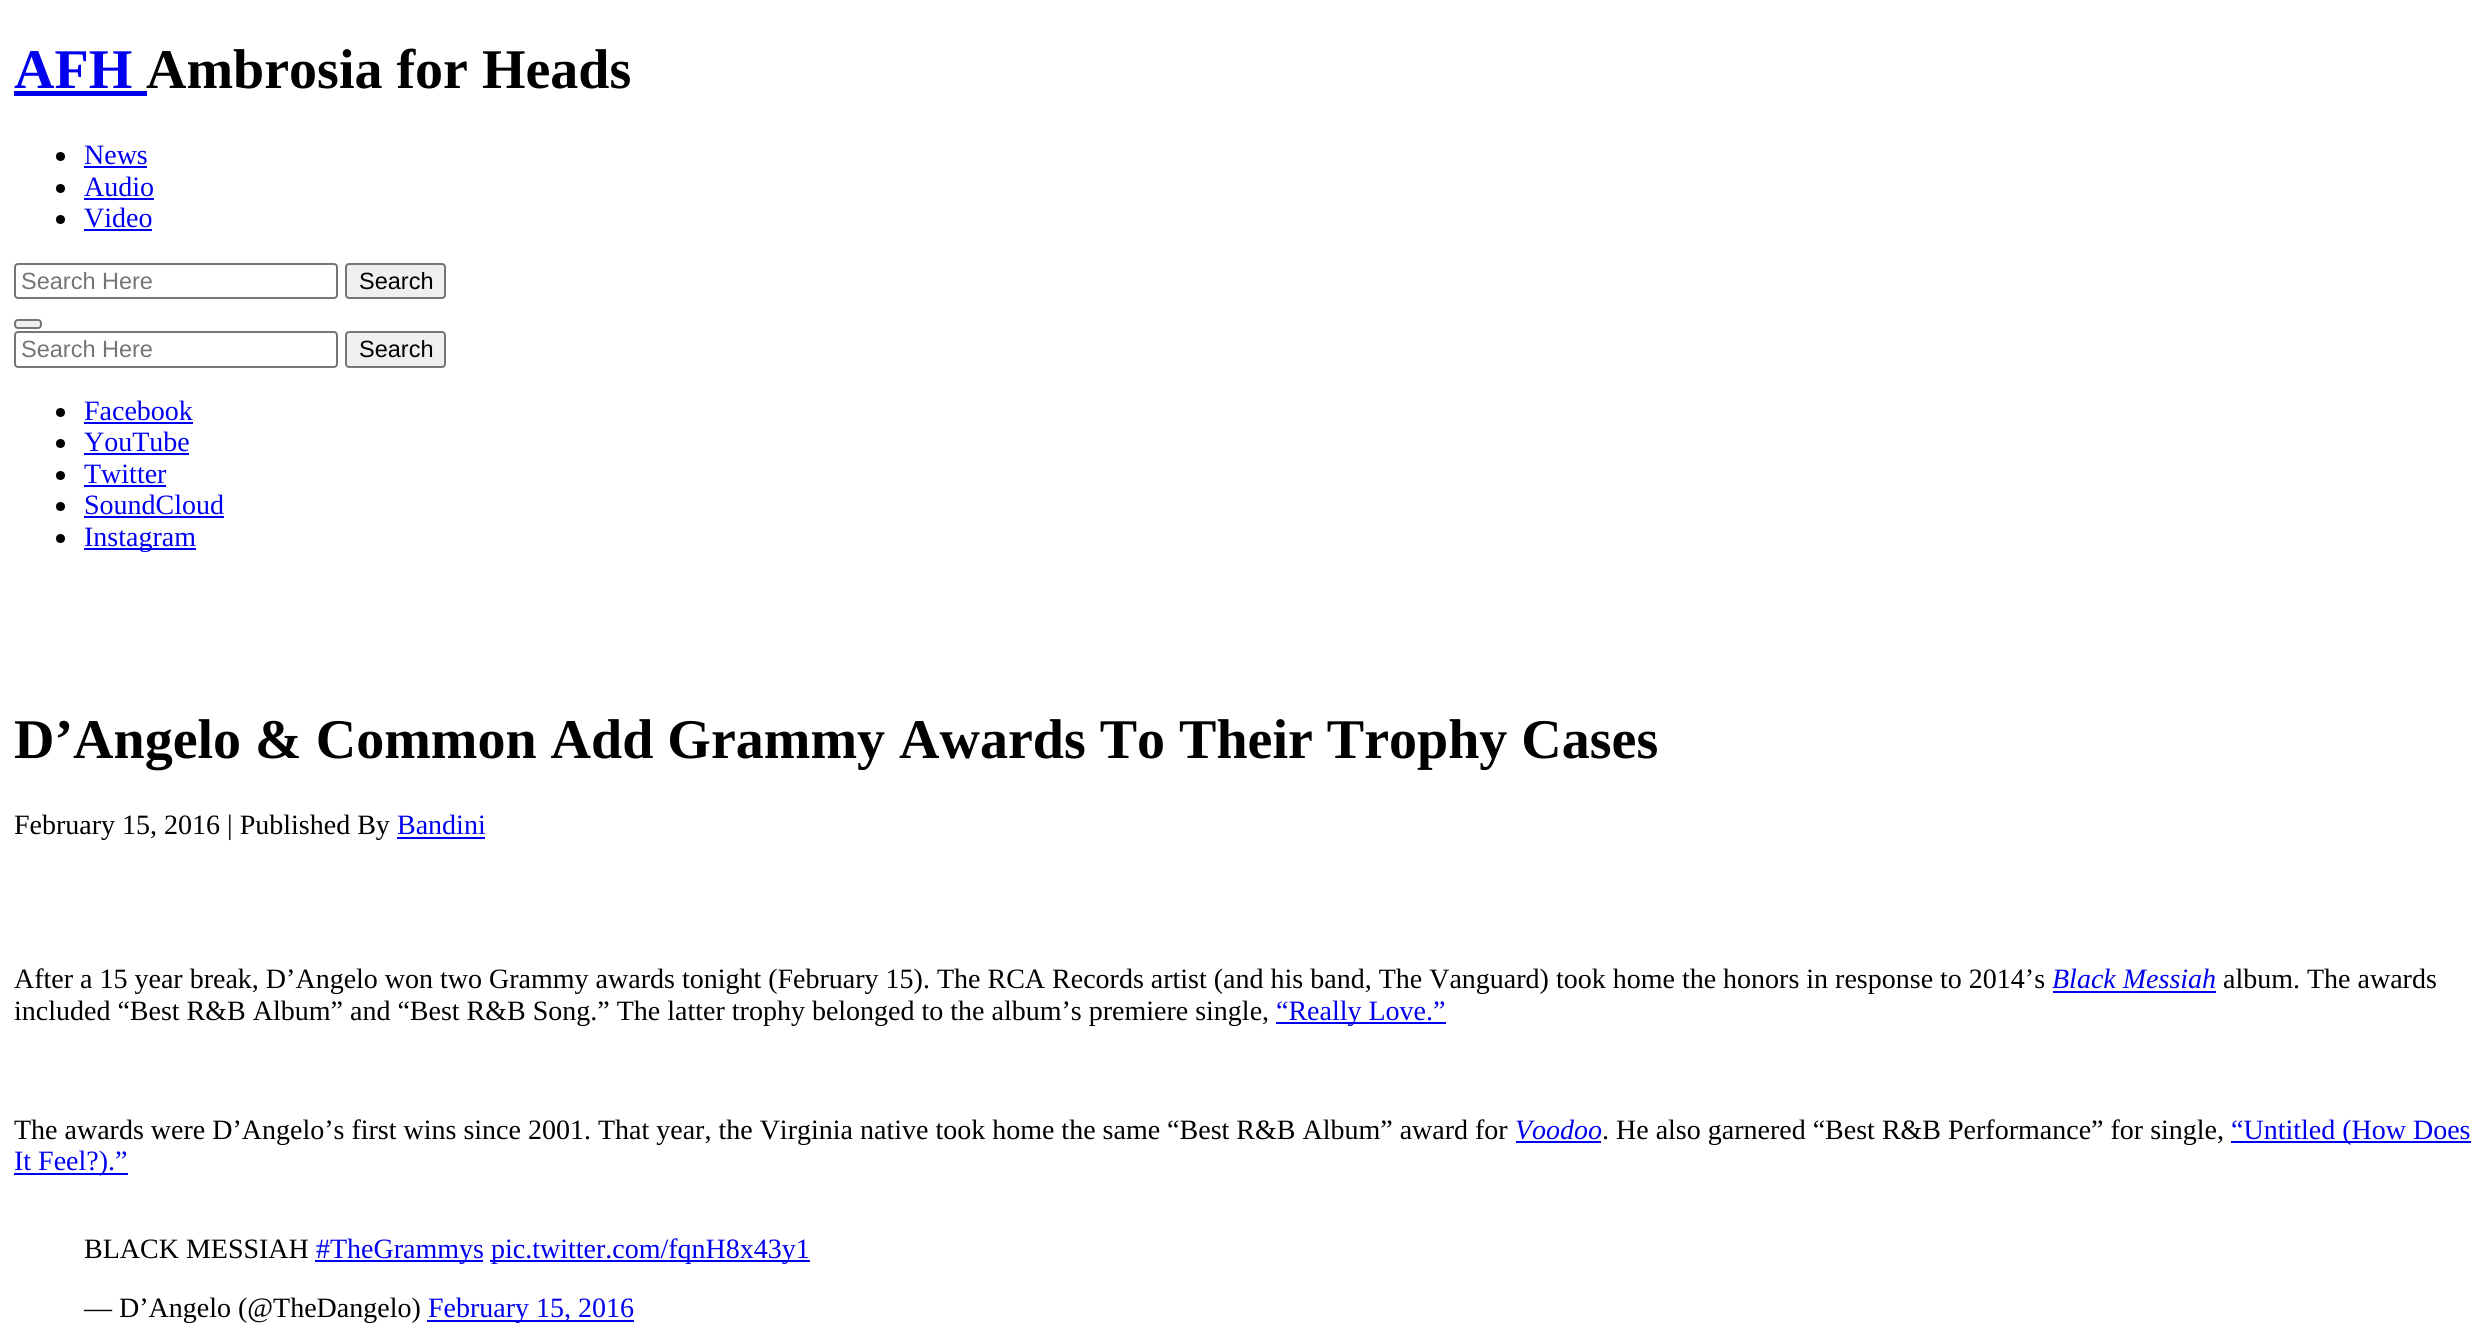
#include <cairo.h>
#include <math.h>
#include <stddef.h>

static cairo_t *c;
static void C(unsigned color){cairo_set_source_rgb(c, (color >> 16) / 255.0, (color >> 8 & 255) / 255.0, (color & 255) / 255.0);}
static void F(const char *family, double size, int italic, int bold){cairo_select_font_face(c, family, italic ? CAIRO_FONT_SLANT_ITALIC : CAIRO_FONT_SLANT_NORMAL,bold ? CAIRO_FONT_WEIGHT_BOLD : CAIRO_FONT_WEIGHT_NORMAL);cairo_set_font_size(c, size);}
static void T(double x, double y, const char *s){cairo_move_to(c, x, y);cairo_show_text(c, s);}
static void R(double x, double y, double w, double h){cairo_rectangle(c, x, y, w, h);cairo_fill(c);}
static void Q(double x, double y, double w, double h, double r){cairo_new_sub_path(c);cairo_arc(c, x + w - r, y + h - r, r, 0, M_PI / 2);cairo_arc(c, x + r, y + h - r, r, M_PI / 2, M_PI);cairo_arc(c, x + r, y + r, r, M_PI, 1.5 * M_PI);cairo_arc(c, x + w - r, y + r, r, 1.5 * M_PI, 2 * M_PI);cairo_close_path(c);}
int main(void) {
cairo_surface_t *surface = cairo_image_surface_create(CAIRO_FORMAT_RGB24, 2488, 1338);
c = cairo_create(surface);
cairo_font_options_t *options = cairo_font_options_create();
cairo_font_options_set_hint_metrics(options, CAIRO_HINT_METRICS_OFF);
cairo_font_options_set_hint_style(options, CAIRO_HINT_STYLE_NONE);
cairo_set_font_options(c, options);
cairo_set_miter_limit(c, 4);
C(0xffffff);
cairo_paint(c);
F("Liberation Serif",56,0,1);
C(0x0000ee);
T(14,88,"AFH");
R(14,91,133,5);
C(0x000000);
T(146,88,"Ambrosia for Heads");
cairo_new_path(c);
cairo_arc(c,60.5,156.5,4.5,0,2 * M_PI);
cairo_fill(c);
F("Liberation Serif",28,0,0);
C(0x0000ee);
T(84,164,"News");
R(84,166,63,2);
C(0x000000);
cairo_new_path(c);
cairo_arc(c,60.5,188.5,4.5,0,2 * M_PI);
cairo_fill(c);
C(0x0000ee);
T(84,196,"Audio");
R(84,198,70,2);
C(0x000000);
cairo_new_path(c);
cairo_arc(c,60.5,219.5,4.5,0,2 * M_PI);
cairo_fill(c);
C(0x0000ee);
T(84,227,"Video");
R(84,229,68,2);
Q(15,264,322,34,3);
C(0x767676);
cairo_stroke(c);
F("Liberation Sans",23.5,0,0);
C(0x757575);
T(21,289,"Search Here");
C(0xefefef);
Q(346,264,99,34,3);
cairo_fill_preserve(c);
C(0x767676);
cairo_stroke(c);
C(0x000000);
T(359,289,"Search");
C(0xefefef);
Q(15,320,26,8,3);
cairo_fill_preserve(c);
C(0x767676);
cairo_stroke(c);
Q(15,332,322,35,3);
cairo_stroke(c);
C(0x757575);
T(21,357,"Search Here");
C(0xefefef);
Q(346,332,99,35,3);
cairo_fill_preserve(c);
C(0x767676);
cairo_stroke(c);
C(0x000000);
T(359,357,"Search");
cairo_new_path(c);
cairo_arc(c,60.5,412.5,4.5,0,2 * M_PI);
cairo_fill(c);
F("Liberation Serif",28,0,0);
C(0x0000ee);
T(84,420,"Facebook");
R(84,422,109,2);
C(0x000000);
cairo_new_path(c);
cairo_arc(c,60.5,443.5,4.5,0,2 * M_PI);
cairo_fill(c);
C(0x0000ee);
T(84,451,"YouTube");
R(84,453,105,2);
C(0x000000);
cairo_new_path(c);
cairo_arc(c,60.5,475.5,4.5,0,2 * M_PI);
cairo_fill(c);
C(0x0000ee);
T(84,483,"Twitter");
R(84,485,82,2);
C(0x000000);
cairo_new_path(c);
cairo_arc(c,60.5,506.5,4.5,0,2 * M_PI);
cairo_fill(c);
C(0x0000ee);
T(84,514,"SoundCloud");
R(84,516,140,2);
C(0x000000);
cairo_new_path(c);
cairo_arc(c,60.5,538.5,4.5,0,2 * M_PI);
cairo_fill(c);
C(0x0000ee);
R(84,548,112,2);
T(84,546,"Instagram");
F("Liberation Serif",56,0,1);
C(0x000000);
T(14,758,"D’Angelo & Common Add Grammy Awards To Their Trophy Cases");
F("Liberation Serif",28,0,0);
T(14,834,"February 15, 2016 | Published By");
C(0x0000ee);
T(397,834,"Bandini");
R(397,837,88,2);
C(0x000000);
T(14,988,"After a 15 year break, D’Angelo won two Grammy awards tonight (February 15). The RCA Records artist (and his band, The Vanguard) took home the honors in response to 2014’s");
F("Liberation Serif",28,1,0);
C(0x0000ee);
T(2052,988,"Black Messiah");
R(2053,991,163,2);
F("Liberation Serif",28,0,0);
C(0x000000);
T(2223,988,"album. The awards");
T(14,1020,"included “Best R&B Album” and “Best R&B Song.” The latter trophy belonged to the album’s premiere single,");
C(0x0000ee);
R(1276,1022,170,2);
T(1276,1020,"“Really Love.”");
C(0x000000);
T(14,1139,"The awards were D’Angelo’s first wins since 2001. That year, the Virginia native took home the same “Best R&B Album” award for");
F("Liberation Serif",28,1,0);
C(0x0000ee);
T(1515,1139,"Voodoo");
R(1516,1141,85,2);
F("Liberation Serif",28,0,0);
C(0x000000);
T(1602,1139,". He also garnered “Best R&B Performance” for single,");
C(0x0000ee);
R(2231,1141,240,2);
T(2231,1139,"“Untitled (How Does");
R(14,1173,114,2);
T(14,1170,"It Feel?).”");
C(0x000000);
T(84,1258,"BLACK MESSIAH");
C(0x0000ee);
R(315,1260,168,2);
T(316,1258,"#TheGrammys");
R(490,1260,320,2);
T(491,1258,"pic.twitter.com/fqnH8x43y1");
C(0x000000);
T(84,1317,"— D’Angelo (@TheDangelo)");
C(0x0000ee);
R(427,1320,207,2);
T(428,1317,"February 15, 2016");
cairo_surface_write_to_png(surface, "o.png");
cairo_font_options_destroy(options);
cairo_destroy(c);
cairo_surface_destroy(surface);
return 0;
}
